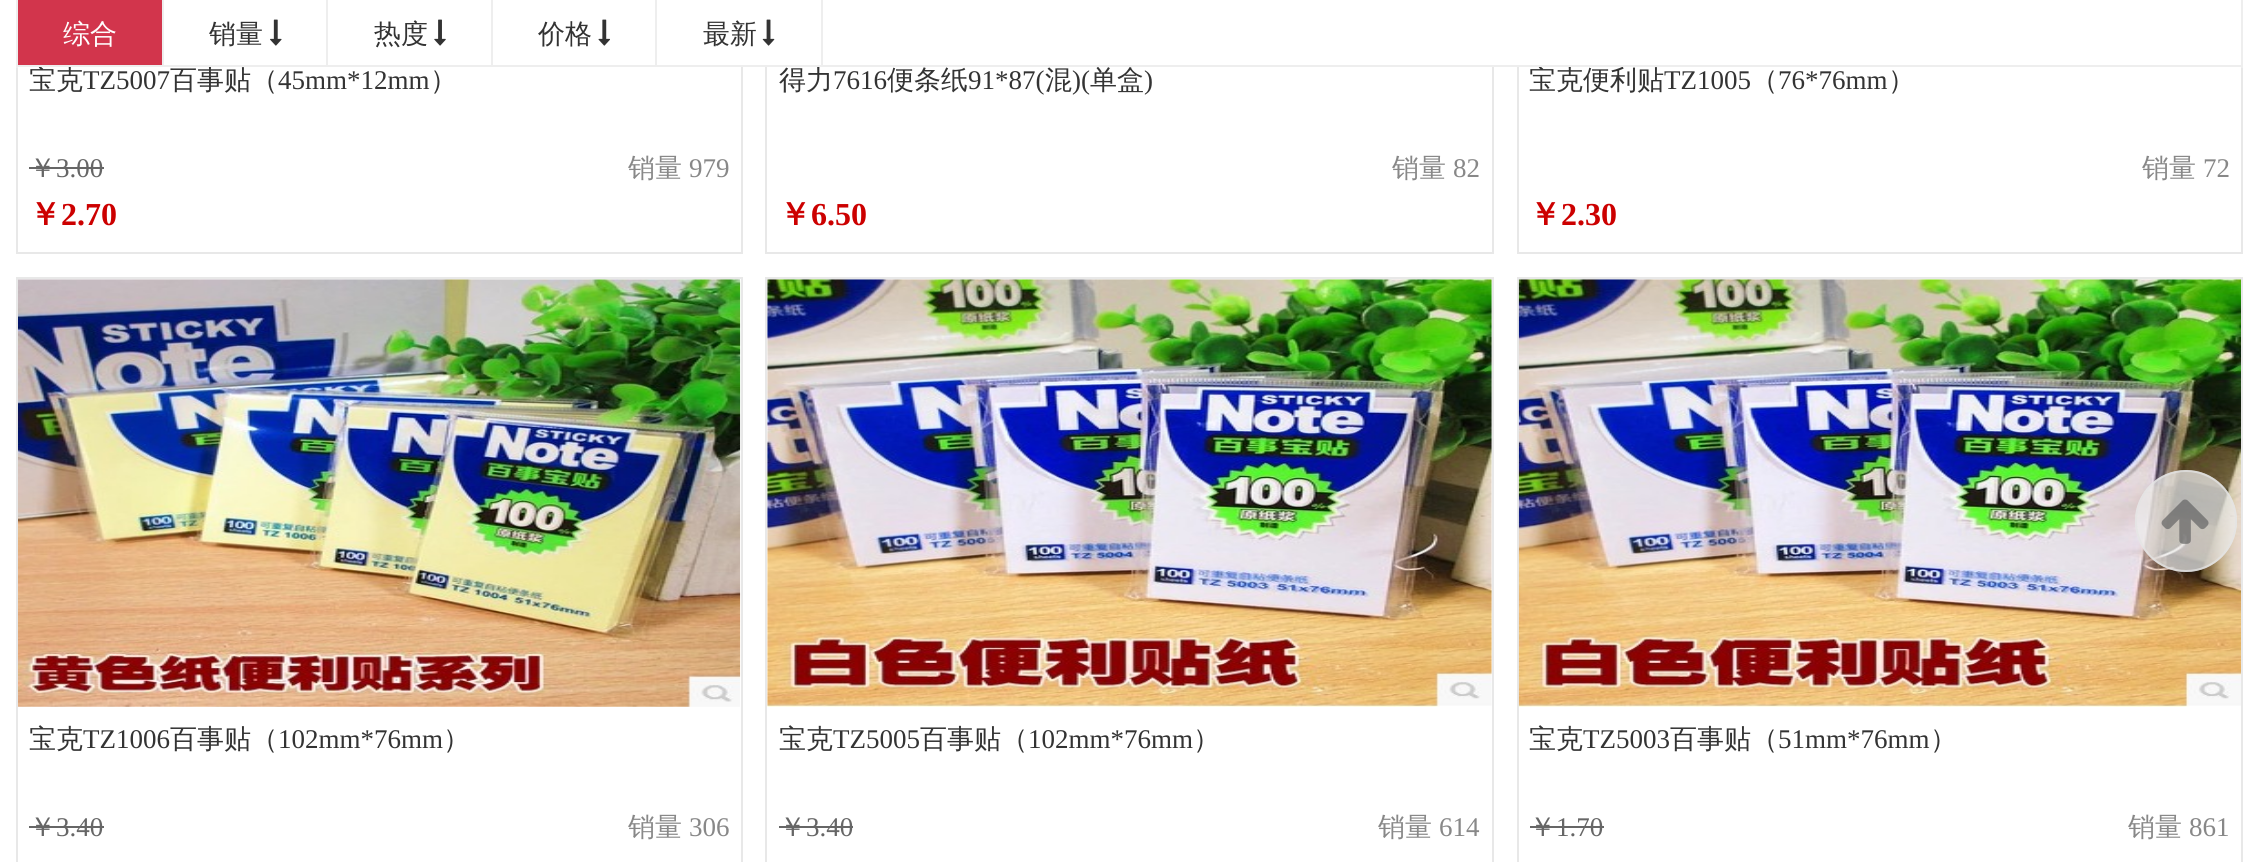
#include <cairo.h>
#include <math.h>
#include <stddef.h>

static cairo_t *c;
static void C(unsigned color){cairo_set_source_rgb(c, (color >> 16) / 255.0, (color >> 8 & 255) / 255.0, (color & 255) / 255.0);}
static void F(const char *family, double size, int italic, int bold){cairo_select_font_face(c, family, italic ? CAIRO_FONT_SLANT_ITALIC : CAIRO_FONT_SLANT_NORMAL,bold ? CAIRO_FONT_WEIGHT_BOLD : CAIRO_FONT_WEIGHT_NORMAL);cairo_set_font_size(c, size);}
static void T(double x, double y, const char *s){cairo_move_to(c, x, y);cairo_show_text(c, s);}
static void R(double x, double y, double w, double h){cairo_rectangle(c, x, y, w, h);cairo_fill(c);}
static void I(const char *path, double x, double y, double w, double h){cairo_surface_t *image = cairo_image_surface_create_from_png(path);cairo_save(c);cairo_set_source_surface(c, image, x, y);cairo_rectangle(c, x, y, w, h);cairo_fill(c);cairo_restore(c);cairo_surface_destroy(image);}
int main(void) {
cairo_surface_t *surface = cairo_image_surface_create(CAIRO_FORMAT_RGB24, 2257, 862);
c = cairo_create(surface);
cairo_font_options_t *options = cairo_font_options_create();
cairo_font_options_set_hint_metrics(options, CAIRO_HINT_METRICS_OFF);
cairo_font_options_set_hint_style(options, CAIRO_HINT_STYLE_NONE);
cairo_set_font_options(c, options);
cairo_set_miter_limit(c, 4);
C(0xffffff);
cairo_paint(c);
cairo_rectangle(c,17,-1,725,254);
C(0xe8e8e8);
cairo_stroke(c);
cairo_rectangle(c,766,-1,727,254);
cairo_stroke(c);
cairo_rectangle(c,1518,-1,724,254);
cairo_stroke(c);
C(0xffffff);
R(741,0,778,65);
C(0xeeeeee);
R(2241,0,2,68);
F("WenQuanYi Zen Hei Medium",27,0,0);
C(0x333333);
T(29,89,"宝克");
T(170,89,"百事贴（");
T(779,89,"得力");
T(1090,89,"单盒");
T(1529,89,"宝克便利贴");
C(0xeeeeee);
R(16,65,2227,2);
R(16,0,2,68);
C(0xd2354c);
R(18,0,144,65);
C(0xeeeeee);
R(162,0,2,65);
C(0xffffff);
T(63,43,"综合");
C(0xeeeeee);
R(326,0,2,65);
C(0x333333);
T(209,43,"销量");
I("1.png",270,19,12,27);
C(0xeeeeee);
R(491,0,2,65);
C(0x333333);
T(374,43,"热度");
I("2.png",434,19,12,27);
C(0xeeeeee);
R(655,0,2,65);
C(0x333333);
T(538,43,"价格");
I("3.png",598,19,12,27);
C(0xeeeeee);
R(821,0,2,65);
C(0x333333);
T(703,43,"最新");
I("4.png",762,19,13,27);
F("Liberation Serif",27,0,0);
T(83,89,"TZ5007");
T(278,89,"45mm*12mm");
F("WenQuanYi Zen Hei Medium",27,0,0);
T(430,89,"）");
C(0x666666);
T(29,177,"￥");
R(29,167,75,2);
F("Liberation Serif",27,0,0);
T(56,177,"3.00");
F("WenQuanYi Zen Hei Medium",27,0,0);
C(0x888888);
T(628,177,"销量");
F("Liberation Serif",27,0,0);
T(689,177,"979");
F("WenQuanYi Zen Hei",32,0,1);
C(0xcc0000);
T(29,225,"￥");
F("Liberation Serif",32,0,1);
T(61,225,"2.70");
F("Liberation Serif",27,0,0);
C(0x333333);
T(833,89,"7616");
F("WenQuanYi Zen Hei Medium",27,0,0);
T(887,89,"便条纸");
F("Liberation Serif",27,0,0);
T(968,89,"91*87(");
F("WenQuanYi Zen Hei Medium",27,0,0);
T(1045,89,"混");
F("Liberation Serif",27,0,0);
T(1072,89,")(");
T(1144,89,")");
F("WenQuanYi Zen Hei Medium",27,0,0);
C(0x888888);
T(1392,177,"销量");
F("Liberation Serif",27,0,0);
T(1453,177,"82");
F("WenQuanYi Zen Hei",32,0,1);
C(0xcc0000);
T(779,225,"￥");
F("Liberation Serif",32,0,1);
T(811,225,"6.50");
F("Liberation Serif",27,0,0);
C(0x333333);
T(1664,89,"TZ1005");
F("WenQuanYi Zen Hei Medium",27,0,0);
T(1751,89,"（");
F("Liberation Serif",27,0,0);
T(1778,89,"76*76mm");
F("WenQuanYi Zen Hei Medium",27,0,0);
T(1888,89,"）");
C(0x888888);
T(2142,177,"销量");
F("Liberation Serif",27,0,0);
T(2203,177,"72");
F("WenQuanYi Zen Hei",32,0,1);
C(0xcc0000);
T(1529,225,"￥");
F("Liberation Serif",32,0,1);
T(1561,225,"2.30");
cairo_rectangle(c,17,278,725,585);
C(0xe8e8e8);
cairo_stroke(c);
I("5.png",18,279,723,428);
F("WenQuanYi Zen Hei Medium",27,0,0);
C(0x333333);
T(29,748,"宝克");
F("Liberation Serif",27,0,0);
T(83,748,"TZ1006");
F("WenQuanYi Zen Hei Medium",27,0,0);
T(170,748,"百事贴（");
F("Liberation Serif",27,0,0);
T(278,748,"102mm*76mm");
F("WenQuanYi Zen Hei Medium",27,0,0);
T(443,748,"）");
C(0x666666);
T(29,836,"￥");
R(29,826,75,2);
F("Liberation Serif",27,0,0);
T(56,836,"3.40");
F("WenQuanYi Zen Hei Medium",27,0,0);
C(0x888888);
T(628,836,"销量");
F("Liberation Serif",27,0,0);
T(689,836,"306");
cairo_rectangle(c,766,278,727,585);
C(0xe8e8e8);
cairo_stroke(c);
I("6.png",767,279,725,428);
F("WenQuanYi Zen Hei Medium",27,0,0);
C(0x333333);
T(779,748,"宝克");
F("Liberation Serif",27,0,0);
T(833,748,"TZ5005");
F("WenQuanYi Zen Hei Medium",27,0,0);
T(920,748,"百事贴（");
F("Liberation Serif",27,0,0);
T(1028,748,"102mm*76mm");
F("WenQuanYi Zen Hei Medium",27,0,0);
T(1193,748,"）");
C(0x666666);
T(779,836,"￥");
R(779,826,74,2);
F("Liberation Serif",27,0,0);
T(806,836,"3.40");
F("WenQuanYi Zen Hei Medium",27,0,0);
C(0x888888);
T(1378,836,"销量");
F("Liberation Serif",27,0,0);
T(1439,836,"614");
cairo_rectangle(c,1518,278,724,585);
C(0xe8e8e8);
cairo_stroke(c);
I("7.png",1518,279,723,428);
F("WenQuanYi Zen Hei Medium",27,0,0);
C(0x333333);
T(1529,748,"宝克");
F("Liberation Serif",27,0,0);
T(1583,748,"TZ5003");
F("WenQuanYi Zen Hei Medium",27,0,0);
T(1670,748,"百事贴（");
F("Liberation Serif",27,0,0);
T(1778,748,"51mm*76mm");
F("WenQuanYi Zen Hei Medium",27,0,0);
T(1930,748,"）");
C(0x666666);
T(1529,836,"￥");
R(1530,826,74,2);
F("Liberation Serif",27,0,0);
T(1556,836,"1.70");
F("WenQuanYi Zen Hei Medium",27,0,0);
C(0x888888);
T(2128,836,"销量");
F("Liberation Serif",27,0,0);
T(2189,836,"861");
cairo_set_source_rgba(c,0.933,0.933,0.933,0.72);
cairo_new_path(c);
cairo_arc(c,2186,521,51,0,2 * M_PI);
cairo_fill(c);
cairo_arc(c,2186,521,50,0,2 * M_PI);
cairo_set_source_rgba(c,0.89,0.89,0.89,0.72);
cairo_stroke(c);
I("8.png",2161,499,48,45);
cairo_surface_write_to_png(surface, "o.png");
cairo_font_options_destroy(options);
cairo_destroy(c);
cairo_surface_destroy(surface);
return 0;
}
